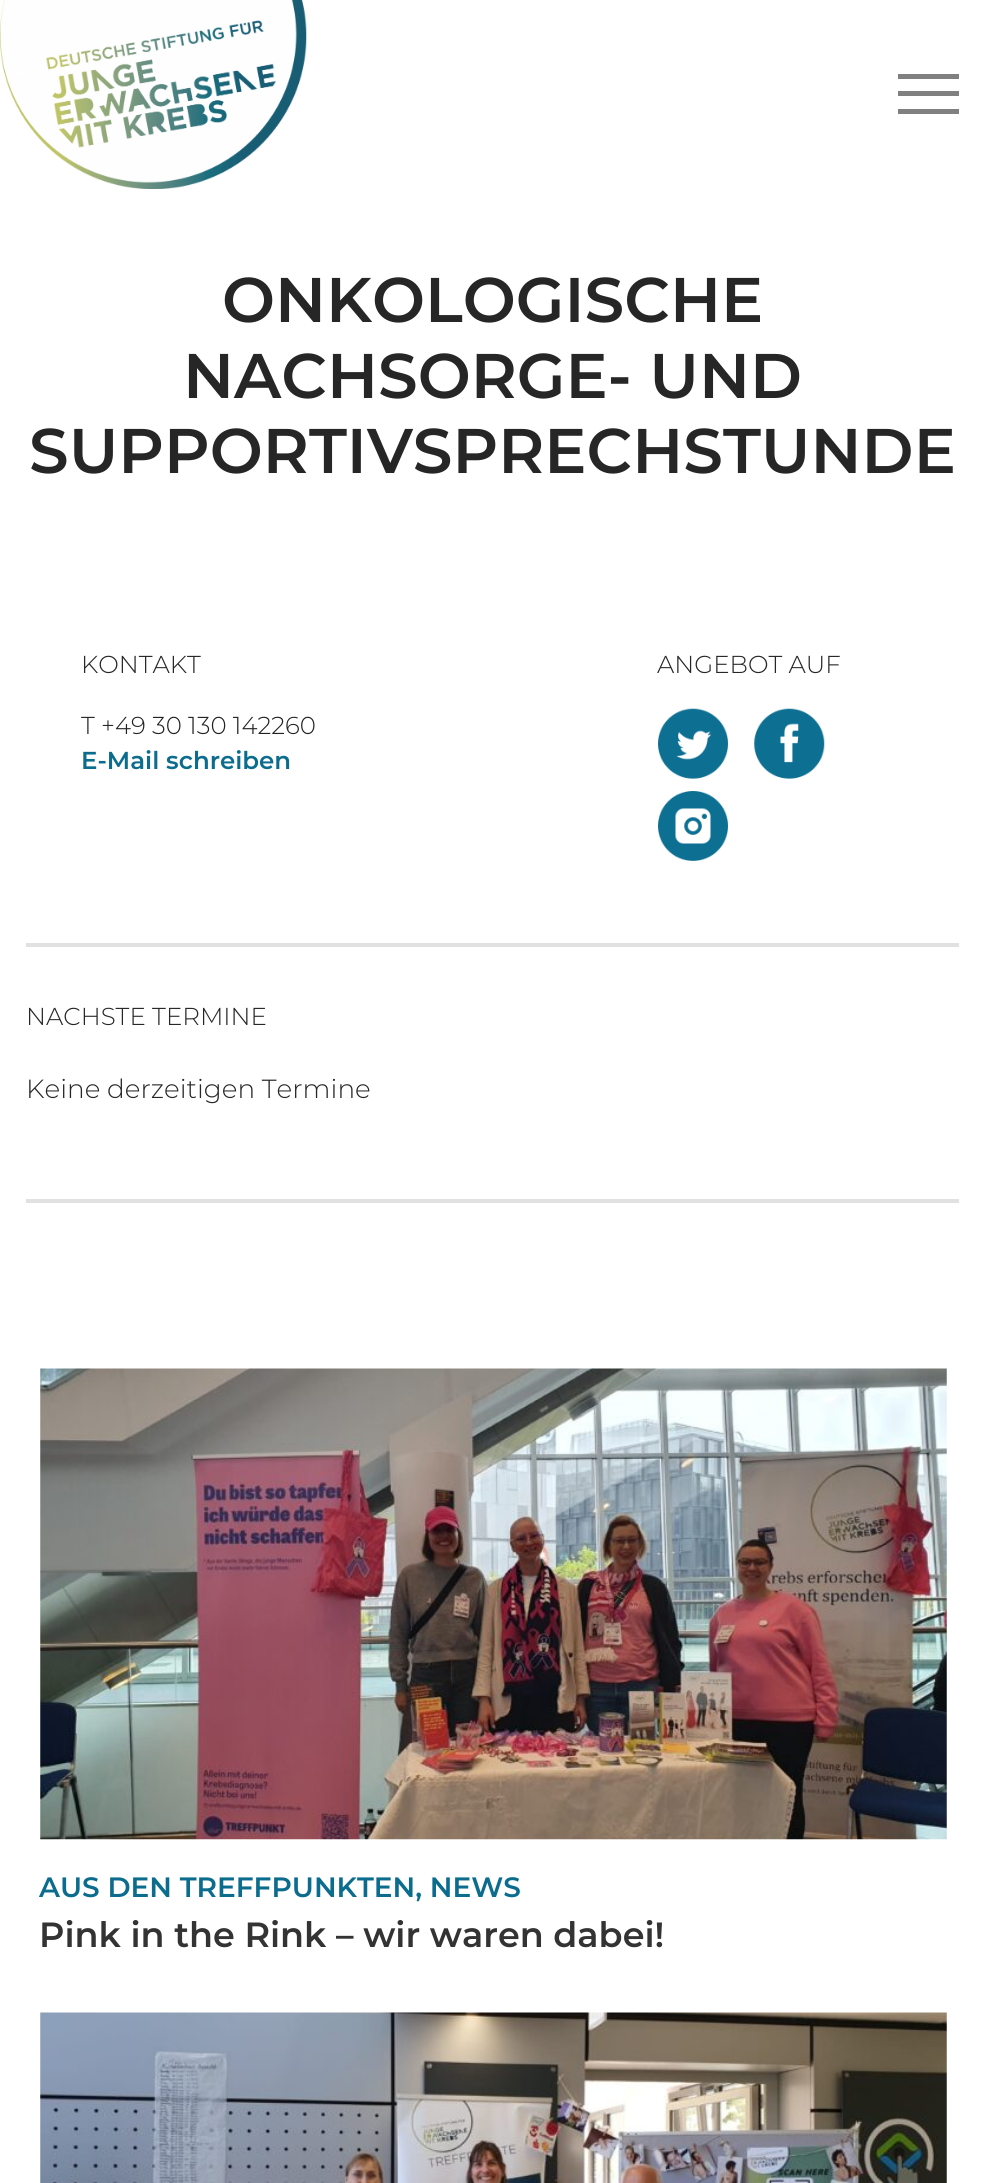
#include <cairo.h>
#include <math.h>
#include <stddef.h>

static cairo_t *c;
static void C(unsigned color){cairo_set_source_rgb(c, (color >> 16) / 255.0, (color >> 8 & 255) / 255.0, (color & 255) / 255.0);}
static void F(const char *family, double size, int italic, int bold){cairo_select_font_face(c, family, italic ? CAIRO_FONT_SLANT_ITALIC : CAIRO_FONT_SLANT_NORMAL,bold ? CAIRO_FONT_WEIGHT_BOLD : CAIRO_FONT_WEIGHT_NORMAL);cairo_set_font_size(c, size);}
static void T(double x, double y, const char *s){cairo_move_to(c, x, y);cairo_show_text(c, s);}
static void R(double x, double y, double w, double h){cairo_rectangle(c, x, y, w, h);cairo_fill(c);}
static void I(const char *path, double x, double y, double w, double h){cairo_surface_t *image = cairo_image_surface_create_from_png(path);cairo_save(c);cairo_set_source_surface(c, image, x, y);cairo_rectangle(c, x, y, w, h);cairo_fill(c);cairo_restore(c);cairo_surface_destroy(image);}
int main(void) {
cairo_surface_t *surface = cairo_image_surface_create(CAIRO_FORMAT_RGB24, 984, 2183);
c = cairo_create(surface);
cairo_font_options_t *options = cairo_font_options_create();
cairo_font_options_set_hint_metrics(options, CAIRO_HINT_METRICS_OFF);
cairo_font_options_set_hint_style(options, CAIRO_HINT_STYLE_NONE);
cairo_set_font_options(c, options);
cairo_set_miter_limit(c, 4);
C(0xffffff);
cairo_paint(c);
I("1.png",0,0,307,189);
C(0x808080);
R(898,74,61,5);
R(898,91,61,5);
R(898,109,61,5);
F("Montserrat SemiBold",63,0,0);
C(0x272626);
T(222,322,"ONKOLOGISCHE");
T(183,398,"NACHSORGE- UND");
T(29,473,"SUPPORTIVSPRECHSTUNDE");
F("Montserrat Light",24.5,0,0);
T(81,673,"KONTAKT");
T(81,734,"T");
C(0x212121);
T(101,734,"+49 30 130 142260");
F("Montserrat SemiBold",24.5,0,0);
C(0x0c6c8e);
T(81,769,"E-Mail schreiben");
F("Montserrat Light",24.5,0,0);
C(0x272626);
T(657,673,"ANGEBOT AUF");
I("2.png",658,708,70,71);
I("3.png",754,708,71,71);
I("4.png",658,791,70,70);
C(0xe1e1e1);
R(26,943,933,4);
C(0x272626);
T(26,1025,"NACHSTE TERMINE");
F("Montserrat Light",26.25,0,0);
T(26,1098,"Keine derzeitigen Termine");
C(0xe1e1e1);
R(26,1199,933,4);
I("5.png",40,1368,907,472);
F("Montserrat SemiBold",28,0,0);
C(0x0c6c8e);
T(39,1897,"AUS DEN TREFFPUNKTEN, NEWS");
F("Montserrat SemiBold",35,0,0);
C(0x333333);
T(39,1947,"Pink in the Rink – wir waren dabei!");
I("6.png",40,2012,907,171);
cairo_surface_write_to_png(surface, "o.png");
cairo_font_options_destroy(options);
cairo_destroy(c);
cairo_surface_destroy(surface);
return 0;
}
